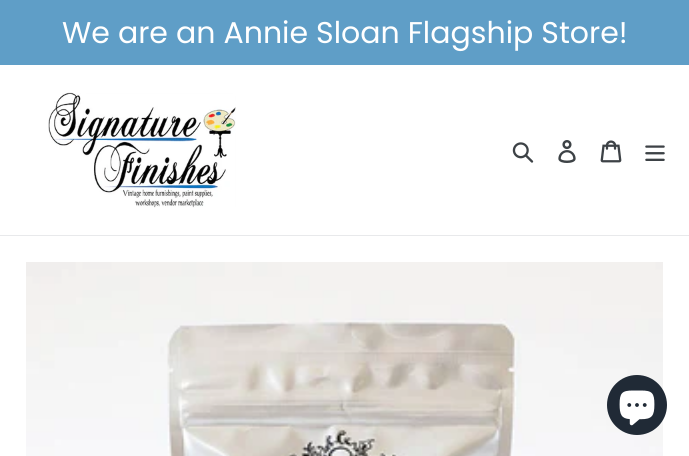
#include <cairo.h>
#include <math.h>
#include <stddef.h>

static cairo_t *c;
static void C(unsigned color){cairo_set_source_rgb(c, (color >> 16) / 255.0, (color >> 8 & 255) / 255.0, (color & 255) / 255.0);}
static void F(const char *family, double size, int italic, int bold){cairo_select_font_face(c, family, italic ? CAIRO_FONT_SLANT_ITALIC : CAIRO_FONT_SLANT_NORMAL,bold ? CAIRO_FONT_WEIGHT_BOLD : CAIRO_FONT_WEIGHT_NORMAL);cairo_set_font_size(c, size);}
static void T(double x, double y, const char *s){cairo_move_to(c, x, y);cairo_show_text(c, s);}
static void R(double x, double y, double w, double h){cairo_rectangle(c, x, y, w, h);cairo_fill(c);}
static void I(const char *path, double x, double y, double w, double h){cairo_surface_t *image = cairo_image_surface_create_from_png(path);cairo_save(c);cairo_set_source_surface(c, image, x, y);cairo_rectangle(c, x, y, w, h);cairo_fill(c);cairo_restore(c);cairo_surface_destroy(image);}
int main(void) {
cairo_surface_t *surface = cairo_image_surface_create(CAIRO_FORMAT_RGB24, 689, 456);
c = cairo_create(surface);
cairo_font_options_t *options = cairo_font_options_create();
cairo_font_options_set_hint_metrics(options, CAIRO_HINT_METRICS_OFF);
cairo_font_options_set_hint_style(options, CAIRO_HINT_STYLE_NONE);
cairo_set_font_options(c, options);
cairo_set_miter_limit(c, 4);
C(0xffffff);
cairo_paint(c);
C(0x5f9ec7);
R(0,0,689,65);
F("Poppins",30,0,0);
C(0xffffff);
T(62,43,"We are an Annie Sloan Flagship Store!");
C(0xe8e9eb);
R(0,235,689,1);
I("1.png",48,92,188,116);
I("2.png",512,142,22,21);
I("3.png",558,140,18,23);
I("4.png",600,140,22,23);
I("5.png",645,145,20,16);
I("6.png",26,262,637,194);
C(0x202a36);
cairo_arc(c,637,405,30,0,2 * M_PI);
cairo_fill(c);
I("7.png",619,390,36,36);
cairo_surface_write_to_png(surface, "o.png");
cairo_font_options_destroy(options);
cairo_destroy(c);
cairo_surface_destroy(surface);
return 0;
}
